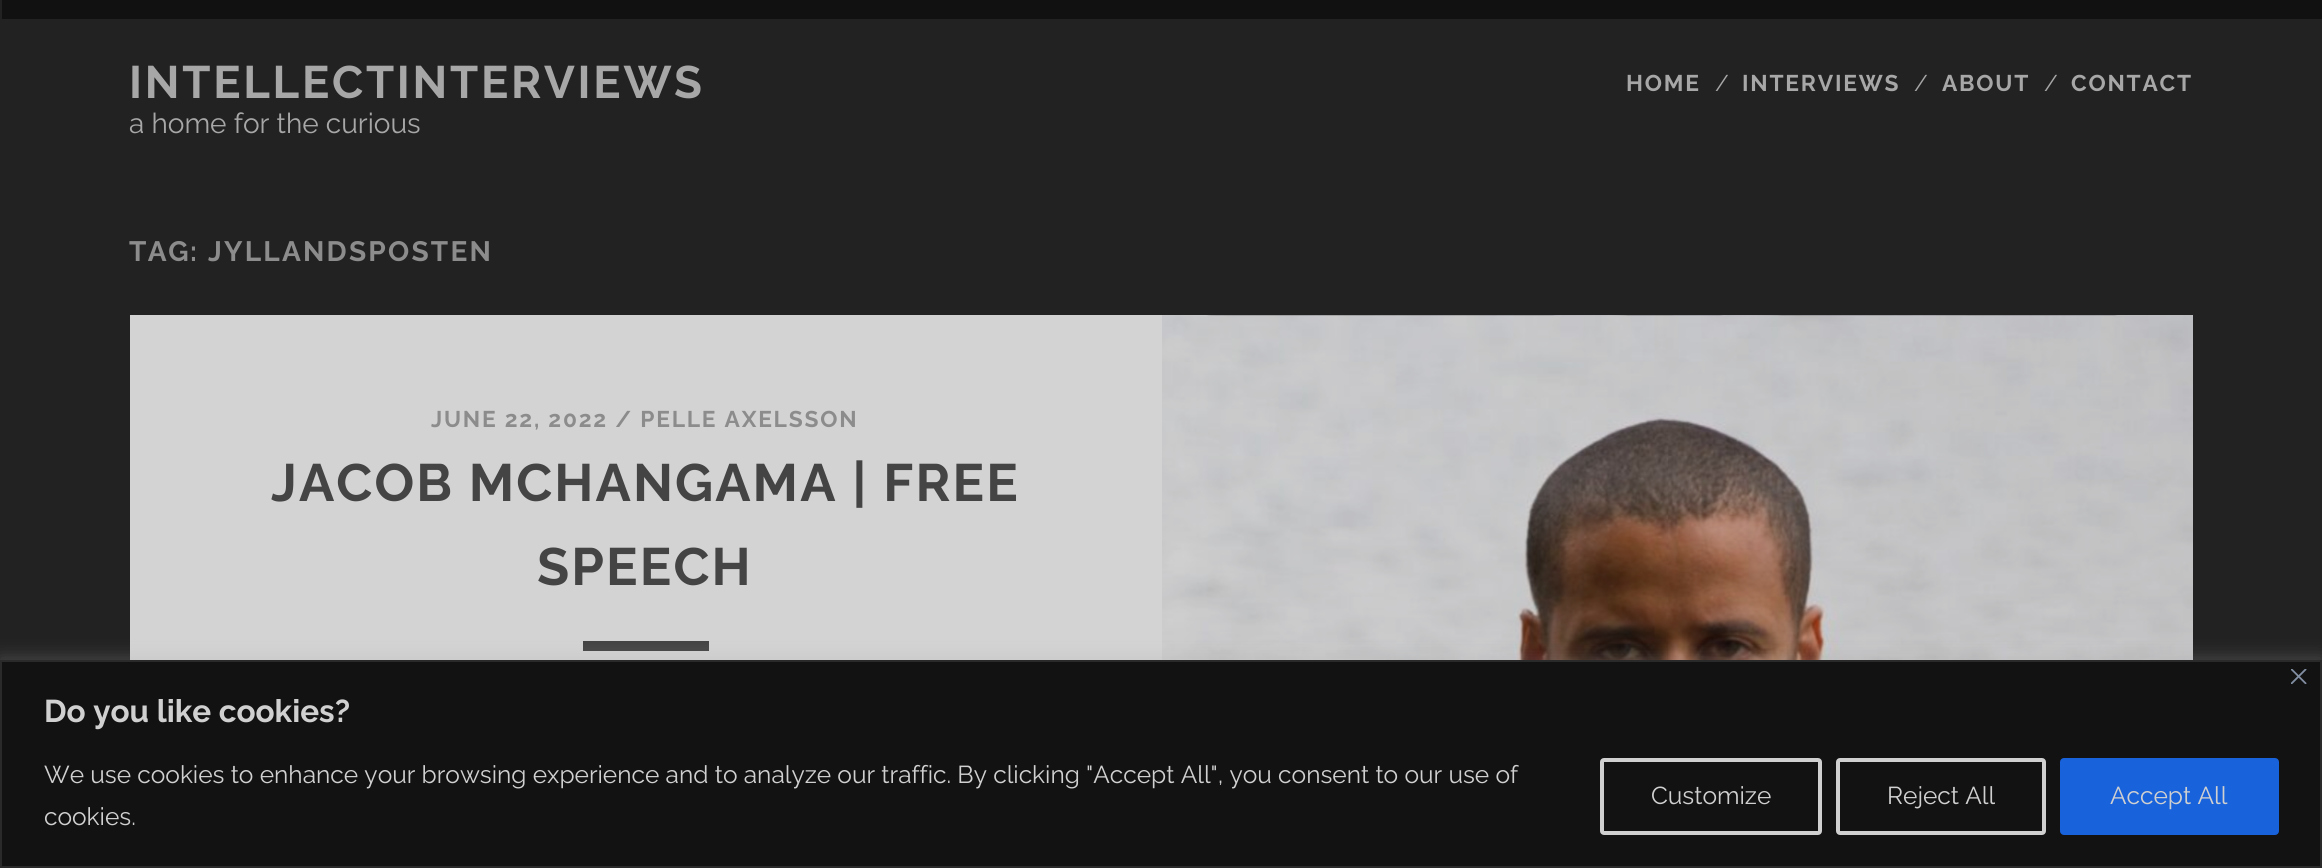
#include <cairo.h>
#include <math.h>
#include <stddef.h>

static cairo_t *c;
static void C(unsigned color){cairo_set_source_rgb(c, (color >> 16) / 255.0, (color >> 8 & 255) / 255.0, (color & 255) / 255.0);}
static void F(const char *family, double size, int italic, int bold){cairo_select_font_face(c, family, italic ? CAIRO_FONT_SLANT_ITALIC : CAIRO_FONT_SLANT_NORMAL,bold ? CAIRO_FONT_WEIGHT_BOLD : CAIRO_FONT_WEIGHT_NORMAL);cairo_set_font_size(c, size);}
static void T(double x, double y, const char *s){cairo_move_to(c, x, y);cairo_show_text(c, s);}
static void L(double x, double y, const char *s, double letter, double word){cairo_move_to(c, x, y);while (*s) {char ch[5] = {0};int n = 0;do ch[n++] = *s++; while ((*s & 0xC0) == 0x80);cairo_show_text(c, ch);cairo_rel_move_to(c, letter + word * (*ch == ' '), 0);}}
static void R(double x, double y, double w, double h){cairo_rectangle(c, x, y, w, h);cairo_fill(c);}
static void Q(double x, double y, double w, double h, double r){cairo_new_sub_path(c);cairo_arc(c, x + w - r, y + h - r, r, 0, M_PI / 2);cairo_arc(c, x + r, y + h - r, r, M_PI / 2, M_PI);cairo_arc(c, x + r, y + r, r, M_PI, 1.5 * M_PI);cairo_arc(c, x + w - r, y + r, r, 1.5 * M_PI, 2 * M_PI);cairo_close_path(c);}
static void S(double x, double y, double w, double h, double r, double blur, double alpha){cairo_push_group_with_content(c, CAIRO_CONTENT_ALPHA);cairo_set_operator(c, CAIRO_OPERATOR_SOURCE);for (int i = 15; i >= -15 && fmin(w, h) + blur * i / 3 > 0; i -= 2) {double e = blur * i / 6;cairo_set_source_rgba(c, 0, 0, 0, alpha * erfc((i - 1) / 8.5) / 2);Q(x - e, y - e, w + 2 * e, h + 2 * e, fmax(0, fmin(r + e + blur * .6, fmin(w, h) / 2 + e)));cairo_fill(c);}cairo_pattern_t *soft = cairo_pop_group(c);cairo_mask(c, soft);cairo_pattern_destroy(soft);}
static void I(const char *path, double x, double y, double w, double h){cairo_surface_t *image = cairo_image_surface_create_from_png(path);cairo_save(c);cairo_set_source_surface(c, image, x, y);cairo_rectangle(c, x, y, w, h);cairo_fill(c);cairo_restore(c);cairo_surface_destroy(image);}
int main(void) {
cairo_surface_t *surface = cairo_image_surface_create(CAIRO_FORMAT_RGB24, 2322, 868);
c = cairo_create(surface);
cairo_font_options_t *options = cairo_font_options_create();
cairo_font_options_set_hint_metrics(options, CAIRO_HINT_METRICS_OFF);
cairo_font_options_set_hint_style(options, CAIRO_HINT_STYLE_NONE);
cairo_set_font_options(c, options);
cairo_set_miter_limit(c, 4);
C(0x222222);
cairo_paint(c);
C(0x111111);
R(2,0,2320,19);
F("Raleway",45.5,0,1);
C(0xa7a7a7);
L(129,98,"INTELLECTINTERVIEWS",2.75,0);
F("Raleway",22.75,0,1);
L(1626,91,"HOME",1.8,0);
F("Raleway",22.75,0,0);
T(1715,91,"/");
F("Raleway",22.75,0,1);
L(1742,91,"INTERVIEWS",1.8,0);
F("Raleway",22.75,0,0);
T(1914,91,"/");
F("Raleway",22.75,0,1);
L(1942,91,"ABOUT",1.8,0);
F("Raleway",22.75,0,0);
T(2044,91,"/");
F("Raleway",22.75,0,1);
L(2071,91,"CONTACT",1.8,0);
F("Raleway",28,0,0);
T(129,133,"a home for the curious");
F("Raleway",28,0,1);
C(0x8c8c8c);
L(129,261,"TAG:",1.5,0);
L(208,261,"JYLLANDSPOSTEN",2.25,0);
C(0xd3d3d3);
R(130,315,1032,345);
F("Raleway",22.75,0,1);
C(0x8c8c8c);
L(431,427,"JUNE 22, 2022 / PELLE AXELSSON",1.8,0);
F("Raleway",52.5,0,1);
C(0x444444);
L(271,501,"JACOB MCHANGAMA | FREE",2.1,0);
L(537,585,"SPEECH",2.1,0);
R(583,641,126,10);
I("1.png",1162,315,1031,345);
C(0xacabab);
S(0,658,2322,208,0,9,.3);
C(0x121212);
cairo_rectangle(c,1,661,2320,206);
cairo_fill_preserve(c);
C(0x2a2a2a);
cairo_stroke(c);
I("2.png",2291,669,16,15);
F("Raleway",31.5,0,1);
C(0xd0d0d0);
T(44,722,"Do you like cookies?");
F("Raleway",24.5,0,0);
T(44,783,"We use cookies to enhance your browsing experience and to analyze our traffic. By clicking \"Accept All\", you consent to our use of");
T(44,825,"cookies.");
Q(1602,760,218,73,2);
cairo_set_line_width(c,4);
cairo_stroke(c);
T(1651,804,"Customize");
Q(1838,760,206,73,2);
cairo_stroke(c);
T(1887,804,"Reject All");
C(0x1863dc);
Q(2062,760,215,73,2);
cairo_fill_preserve(c);
cairo_stroke(c);
C(0xd0d0d0);
T(2110,804,"Accept All");
cairo_surface_write_to_png(surface, "o.png");
cairo_font_options_destroy(options);
cairo_destroy(c);
cairo_surface_destroy(surface);
return 0;
}
